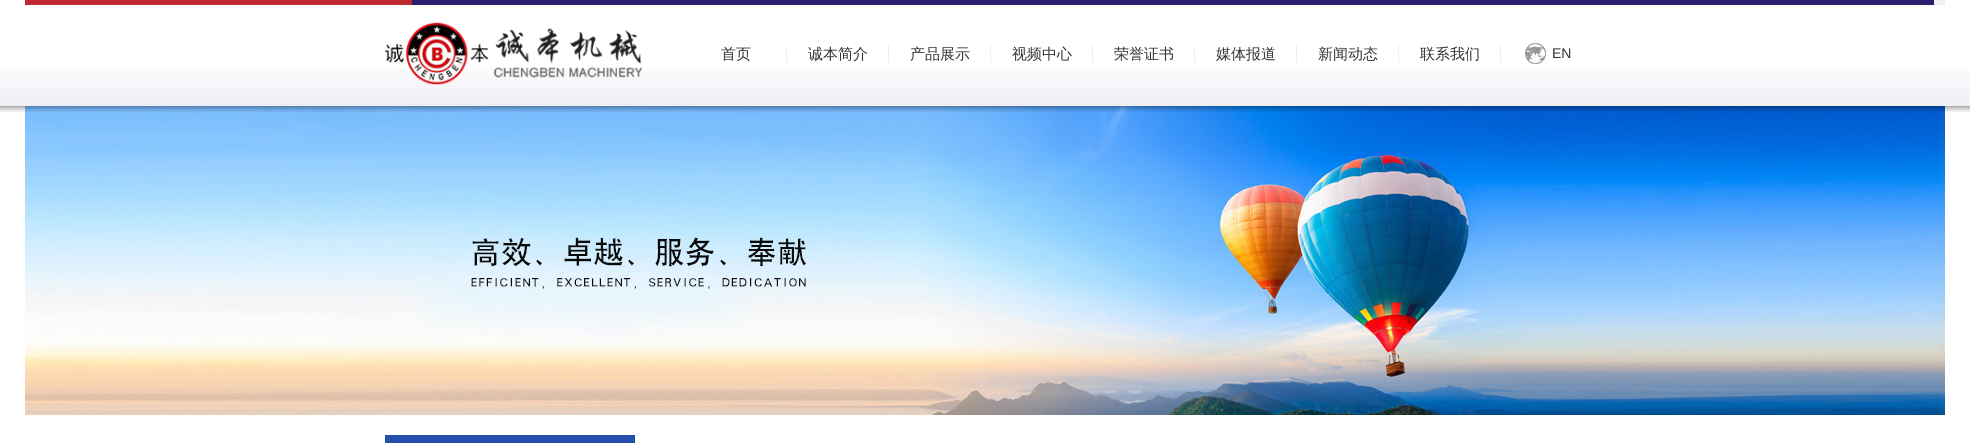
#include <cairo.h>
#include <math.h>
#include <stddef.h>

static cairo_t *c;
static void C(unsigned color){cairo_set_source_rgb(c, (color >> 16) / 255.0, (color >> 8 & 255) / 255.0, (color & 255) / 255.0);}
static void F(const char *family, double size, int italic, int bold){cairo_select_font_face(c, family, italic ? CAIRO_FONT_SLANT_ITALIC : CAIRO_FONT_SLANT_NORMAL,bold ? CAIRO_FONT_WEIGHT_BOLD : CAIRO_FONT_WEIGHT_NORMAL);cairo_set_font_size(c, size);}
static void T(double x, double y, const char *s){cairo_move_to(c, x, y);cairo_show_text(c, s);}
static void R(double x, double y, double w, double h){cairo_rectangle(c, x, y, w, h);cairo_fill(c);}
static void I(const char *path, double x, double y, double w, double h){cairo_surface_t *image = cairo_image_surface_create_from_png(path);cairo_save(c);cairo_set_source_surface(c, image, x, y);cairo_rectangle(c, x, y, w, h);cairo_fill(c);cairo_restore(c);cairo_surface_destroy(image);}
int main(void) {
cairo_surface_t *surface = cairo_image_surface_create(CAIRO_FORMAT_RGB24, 1970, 443);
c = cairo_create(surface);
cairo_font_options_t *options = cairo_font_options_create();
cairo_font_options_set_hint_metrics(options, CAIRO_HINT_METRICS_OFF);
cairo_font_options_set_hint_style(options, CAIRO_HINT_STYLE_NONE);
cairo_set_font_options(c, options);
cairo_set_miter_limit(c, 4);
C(0xffffff);
cairo_paint(c);
I("5.png",25,106,1920,309);
I("1.png",0,68,1970,44);
I("2.png",25,0,1920,5);
I("3.png",385,22,257,63);
C(0xeeeeee);
R(786,45,1,18);
F("WenQuanYi Zen Hei Medium",15,0,0);
C(0x333333);
T(721,59,"首页");
C(0xeeeeee);
R(888,45,1,18);
C(0x333333);
T(808,59,"诚本简介");
C(0xeeeeee);
R(990,45,1,18);
C(0x333333);
T(910,59,"产品展示");
C(0xeeeeee);
R(1092,45,1,18);
C(0x333333);
T(1012,59,"视频中心");
C(0xeeeeee);
R(1194,45,1,18);
C(0x333333);
T(1114,59,"荣誉证书");
C(0xeeeeee);
R(1296,45,1,18);
C(0x333333);
T(1216,59,"媒体报道");
C(0xeeeeee);
R(1398,45,1,18);
C(0x333333);
T(1318,59,"新闻动态");
C(0xeeeeee);
R(1500,45,1,18);
C(0x333333);
T(1420,59,"联系我们");
I("4.png",1525,43,22,21);
F("Liberation Sans",14,0,0);
T(1552,58,"EN");
C(0x2351ad);
R(385,435,250,8);
cairo_surface_write_to_png(surface, "o.png");
cairo_font_options_destroy(options);
cairo_destroy(c);
cairo_surface_destroy(surface);
return 0;
}
